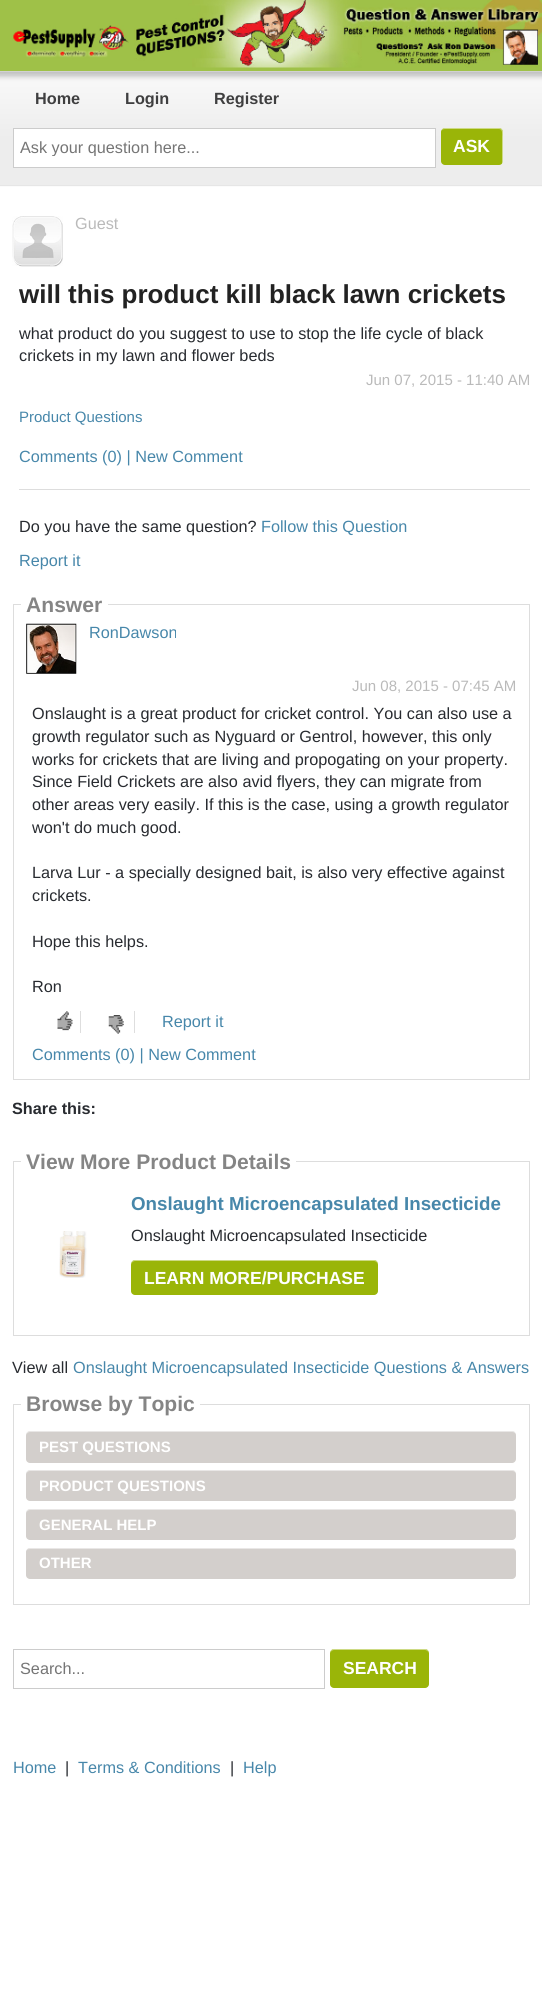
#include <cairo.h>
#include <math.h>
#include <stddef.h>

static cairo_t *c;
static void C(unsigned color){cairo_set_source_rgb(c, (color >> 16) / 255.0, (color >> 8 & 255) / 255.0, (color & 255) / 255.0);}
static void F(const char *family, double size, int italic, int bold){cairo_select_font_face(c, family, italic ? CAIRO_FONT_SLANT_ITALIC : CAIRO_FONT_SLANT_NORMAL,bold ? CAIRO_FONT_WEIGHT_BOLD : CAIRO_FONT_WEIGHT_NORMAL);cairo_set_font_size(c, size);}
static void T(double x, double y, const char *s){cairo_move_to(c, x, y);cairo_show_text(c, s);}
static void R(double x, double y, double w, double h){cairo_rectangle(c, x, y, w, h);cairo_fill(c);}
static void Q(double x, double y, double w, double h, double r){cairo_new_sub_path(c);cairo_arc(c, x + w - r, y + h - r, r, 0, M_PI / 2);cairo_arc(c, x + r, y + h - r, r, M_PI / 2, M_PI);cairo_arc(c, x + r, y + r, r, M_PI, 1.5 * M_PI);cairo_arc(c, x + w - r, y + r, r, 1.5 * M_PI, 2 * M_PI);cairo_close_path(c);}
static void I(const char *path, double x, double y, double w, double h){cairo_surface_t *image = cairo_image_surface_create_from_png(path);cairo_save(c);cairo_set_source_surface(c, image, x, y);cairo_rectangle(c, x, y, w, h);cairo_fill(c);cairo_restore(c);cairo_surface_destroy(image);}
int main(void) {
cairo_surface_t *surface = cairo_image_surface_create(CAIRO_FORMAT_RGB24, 542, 2015);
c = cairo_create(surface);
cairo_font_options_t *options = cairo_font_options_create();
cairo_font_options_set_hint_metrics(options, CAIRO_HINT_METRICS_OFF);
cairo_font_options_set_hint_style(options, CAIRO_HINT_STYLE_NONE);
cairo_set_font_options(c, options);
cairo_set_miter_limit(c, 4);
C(0xffffff);
cairo_paint(c);
C(0x9fc148);
R(0,0,542,71);
I("1.png",13,0,529,68);
I("2.png",0,71,542,116);
C(0xe6e6e6);
R(0,185,542,1);
F("Liberation Sans",16.25,0,1);
C(0x3f3f40);
T(35,104,"Home");
T(125,104,"Login");
T(214,104,"Register");
C(0xffffff);
cairo_rectangle(c,13.5,128.5,422,39);
cairo_fill_preserve(c);
C(0xcccccc);
cairo_set_line_width(c,1);
cairo_stroke(c);
cairo_save(c);
cairo_rectangle(c,20,138,411,18);
cairo_clip(c);
F("Liberation Sans",16.25,0,0);
C(0x757575);
T(20,153,"Ask your question here...");
cairo_restore(c);
C(0x9ab508);
Q(441,128,62,37,4);
cairo_fill(c);
cairo_set_source_rgba(c,1,1,1,0.5);
cairo_new_path(c);
cairo_move_to(c,445,129);
cairo_line_to(c,499,129);
cairo_curve_to(c,503,129,502,134,502,137);
cairo_line_to(c,502,164);
cairo_curve_to(c,503,163,503,162,503,161);
cairo_line_to(c,503,132);
cairo_curve_to(c,503,130,501,128,499,128);
cairo_line_to(c,445,128);
cairo_curve_to(c,443,128,441,130,441,132);
cairo_curve_to(c,441,130,443,129,445,129);
cairo_close_path(c);
cairo_fill(c);
F("Liberation Sans",17.5,0,1);
C(0xffffff);
T(453,152,"ASK");
I("3.png",12,216,51,51);
F("Liberation Sans",16.25,0,0);
C(0xbababa);
T(75,229,"Guest");
F("Liberation Sans",26,0,1);
C(0x222222);
T(19,303,"will this product kill black lawn crickets");
F("Liberation Sans",16.25,0,0);
C(0x282b30);
T(19,339,"what product do you suggest to use to stop the life cycle of black");
T(19,361,"crickets in my lawn and flower beds");
F("Liberation Sans",15,0,0);
C(0xbababa);
T(366,385,"Jun 07, 2015 - 11:40 AM");
C(0x4787aa);
T(19,422,"Product Questions");
F("Liberation Sans",16.25,0,0);
T(19,462,"Comments (0) | New Comment");
C(0xdddddd);
R(19,489,511,1);
C(0x282b30);
T(19,532,"Do you have the same question?");
C(0x4787aa);
T(261,532,"Follow this Question");
T(19,566,"Report it");
cairo_rectangle(c,13.5,604.5,516,475);
C(0xdddddd);
cairo_stroke(c);
C(0xffffff);
R(21,604,87,1);
F("Liberation Sans",21.1,0,1);
C(0x858585);
T(26,612,"Answer");
I("4.png",26,623,51,51);
F("Liberation Sans",16.25,0,0);
C(0x4787aa);
T(89,638,"RonDawson");
F("Liberation Sans",15,0,0);
C(0xbababa);
T(352,691,"Jun 08, 2015 - 07:45 AM");
F("Liberation Sans",16.25,0,0);
C(0x282b30);
T(32,719,"Onslaught is a great product for cricket control. You can also use a");
T(32,742,"growth regulator such as Nyguard or Gentrol, however, this only");
T(32,765,"works for crickets that are living and propogating on your property.");
T(32,787,"Since Field Crickets are also avid flyers, they can migrate from");
T(32,810,"other areas very easily. If this is the case, using a growth regulator");
T(32,833,"won't do much good.");
T(32,878,"Larva Lur - a specially designed bait, is also very effective against");
T(32,901,"crickets.");
T(32,947,"Hope this helps.");
T(32,992,"Ron");
C(0xdedede);
R(80,1011,1,22);
I("5.png",57,1011,16,20);
R(134,1011,1,22);
I("6.png",108,1015,16,19);
C(0x4787aa);
T(162,1027,"Report it");
T(32,1060,"Comments (0) | New Comment");
F("Liberation Sans",16.25,0,1);
C(0x282b30);
T(12,1114,"Share this:");
cairo_rectangle(c,13.5,1161.5,516,174);
C(0xdddddd);
cairo_stroke(c);
C(0xffffff);
R(21,1161,275,1);
F("Liberation Sans",21.1,0,1);
C(0x858585);
T(26,1169,"View More Product Details");
I("7.png",59,1231,28,47);
F("Liberation Sans",18.75,0,1);
C(0x4787aa);
T(131,1210,"Onslaught Microencapsulated Insecticide");
F("Liberation Sans",16.25,0,0);
C(0x282b30);
T(131,1241,"Onslaught Microencapsulated Insecticide");
C(0x9ab508);
Q(131,1260,247,35,4);
cairo_fill(c);
cairo_set_source_rgba(c,1,1,1,0.5);
cairo_new_path(c);
cairo_move_to(c,135,1261);
cairo_line_to(c,374,1261);
cairo_curve_to(c,376,1261,378,1263,378,1265);
cairo_line_to(c,378,1264);
cairo_curve_to(c,378,1262,376,1260,374,1260);
cairo_line_to(c,135,1260);
cairo_curve_to(c,133,1260,131,1262,131,1264);
cairo_line_to(c,131,1265);
cairo_curve_to(c,131,1263,133,1261,135,1261);
cairo_close_path(c);
cairo_fill(c);
F("Liberation Sans",17.5,0,1);
C(0xffffff);
T(144,1284,"LEARN MORE/PURCHASE");
F("Liberation Sans",16.25,0,0);
C(0x282b30);
T(12,1373,"View all");
C(0x4787aa);
T(73,1373,"Onslaught Microencapsulated Insecticide Questions & Answers");
cairo_rectangle(c,13.5,1404.5,516,200);
C(0xdddddd);
cairo_stroke(c);
C(0xffffff);
R(21,1404,179,1);
F("Liberation Sans",21.1,0,1);
C(0x858585);
T(26,1411,"Browse by Topic");
C(0xd3cfcc);
Q(26,1431,490,32,4);
cairo_fill(c);
cairo_set_source_rgba(c,1,1,1,0.5);
cairo_new_path(c);
cairo_move_to(c,30,1432);
cairo_line_to(c,512,1432);
cairo_curve_to(c,515,1432,516,1434,516,1436);
cairo_curve_to(c,516,1433,515,1431,512,1431);
cairo_line_to(c,30,1431);
cairo_curve_to(c,27,1431,26,1433,26,1436);
cairo_curve_to(c,26,1434,28,1432,30,1432);
cairo_close_path(c);
cairo_fill(c);
F("Liberation Sans",15,0,1);
C(0xffffff);
T(39,1452,"PEST QUESTIONS");
C(0xd3cfcc);
Q(26,1470,490,31,4);
cairo_fill(c);
cairo_set_source_rgba(c,1,1,1,0.5);
cairo_new_path(c);
cairo_move_to(c,30,1471);
cairo_line_to(c,512,1471);
cairo_curve_to(c,515,1471,516,1473,516,1475);
cairo_curve_to(c,516,1472,515,1470,512,1470);
cairo_line_to(c,30,1470);
cairo_curve_to(c,27,1470,26,1472,26,1475);
cairo_curve_to(c,26,1473,28,1471,30,1471);
cairo_close_path(c);
cairo_fill(c);
C(0xffffff);
T(39,1491,"PRODUCT QUESTIONS");
C(0xd3cfcc);
Q(26,1509,490,31,4);
cairo_fill(c);
cairo_set_source_rgba(c,1,1,1,0.5);
cairo_new_path(c);
cairo_move_to(c,30,1510);
cairo_line_to(c,512,1510);
cairo_curve_to(c,515,1510,516,1512,516,1514);
cairo_curve_to(c,516,1511,515,1509,512,1509);
cairo_line_to(c,30,1509);
cairo_curve_to(c,27,1509,26,1511,26,1514);
cairo_curve_to(c,26,1512,28,1510,30,1510);
cairo_close_path(c);
cairo_fill(c);
C(0xffffff);
T(39,1530,"GENERAL HELP");
C(0xd3cfcc);
Q(26,1548,490,31,4);
cairo_fill(c);
cairo_set_source_rgba(c,1,1,1,0.5);
cairo_new_path(c);
cairo_move_to(c,30,1549);
cairo_line_to(c,514,1549);
cairo_line_to(c,516,1550);
cairo_curve_to(c,515,1549,514,1548,512,1548);
cairo_line_to(c,30,1548);
cairo_curve_to(c,28,1548,26,1550,26,1552);
cairo_curve_to(c,26,1550,28,1549,30,1549);
cairo_close_path(c);
cairo_fill(c);
C(0xffffff);
T(39,1568,"OTHER");
cairo_rectangle(c,13.5,1649.5,311,39);
C(0xcccccc);
cairo_stroke(c);
F("Liberation Sans",16.25,0,0);
C(0x757575);
T(20,1674,"Search...");
C(0x9ab508);
Q(330,1649,99,39,4);
cairo_fill(c);
cairo_set_source_rgba(c,1,1,1,0.5);
cairo_new_path(c);
cairo_move_to(c,334,1650);
cairo_line_to(c,425,1650);
cairo_curve_to(c,427,1650,429,1652,429,1654);
cairo_curve_to(c,429,1645,414,1649,410,1649);
cairo_line_to(c,349,1649);
cairo_curve_to(c,345,1649,330,1645,330,1654);
cairo_curve_to(c,330,1652,332,1650,334,1650);
cairo_close_path(c);
cairo_fill(c);
F("Liberation Sans",17.5,0,1);
C(0xffffff);
T(343,1674,"SEARCH");
F("Liberation Sans",16.25,0,0);
C(0x4787aa);
T(13,1773,"Home");
C(0x282b30);
T(65,1773,"|");
C(0x4787aa);
T(78,1773,"Terms & Conditions");
C(0x282b30);
T(230,1773,"|");
C(0x4787aa);
T(243,1773,"Help");
cairo_surface_write_to_png(surface, "o.png");
cairo_font_options_destroy(options);
cairo_destroy(c);
cairo_surface_destroy(surface);
return 0;
}
